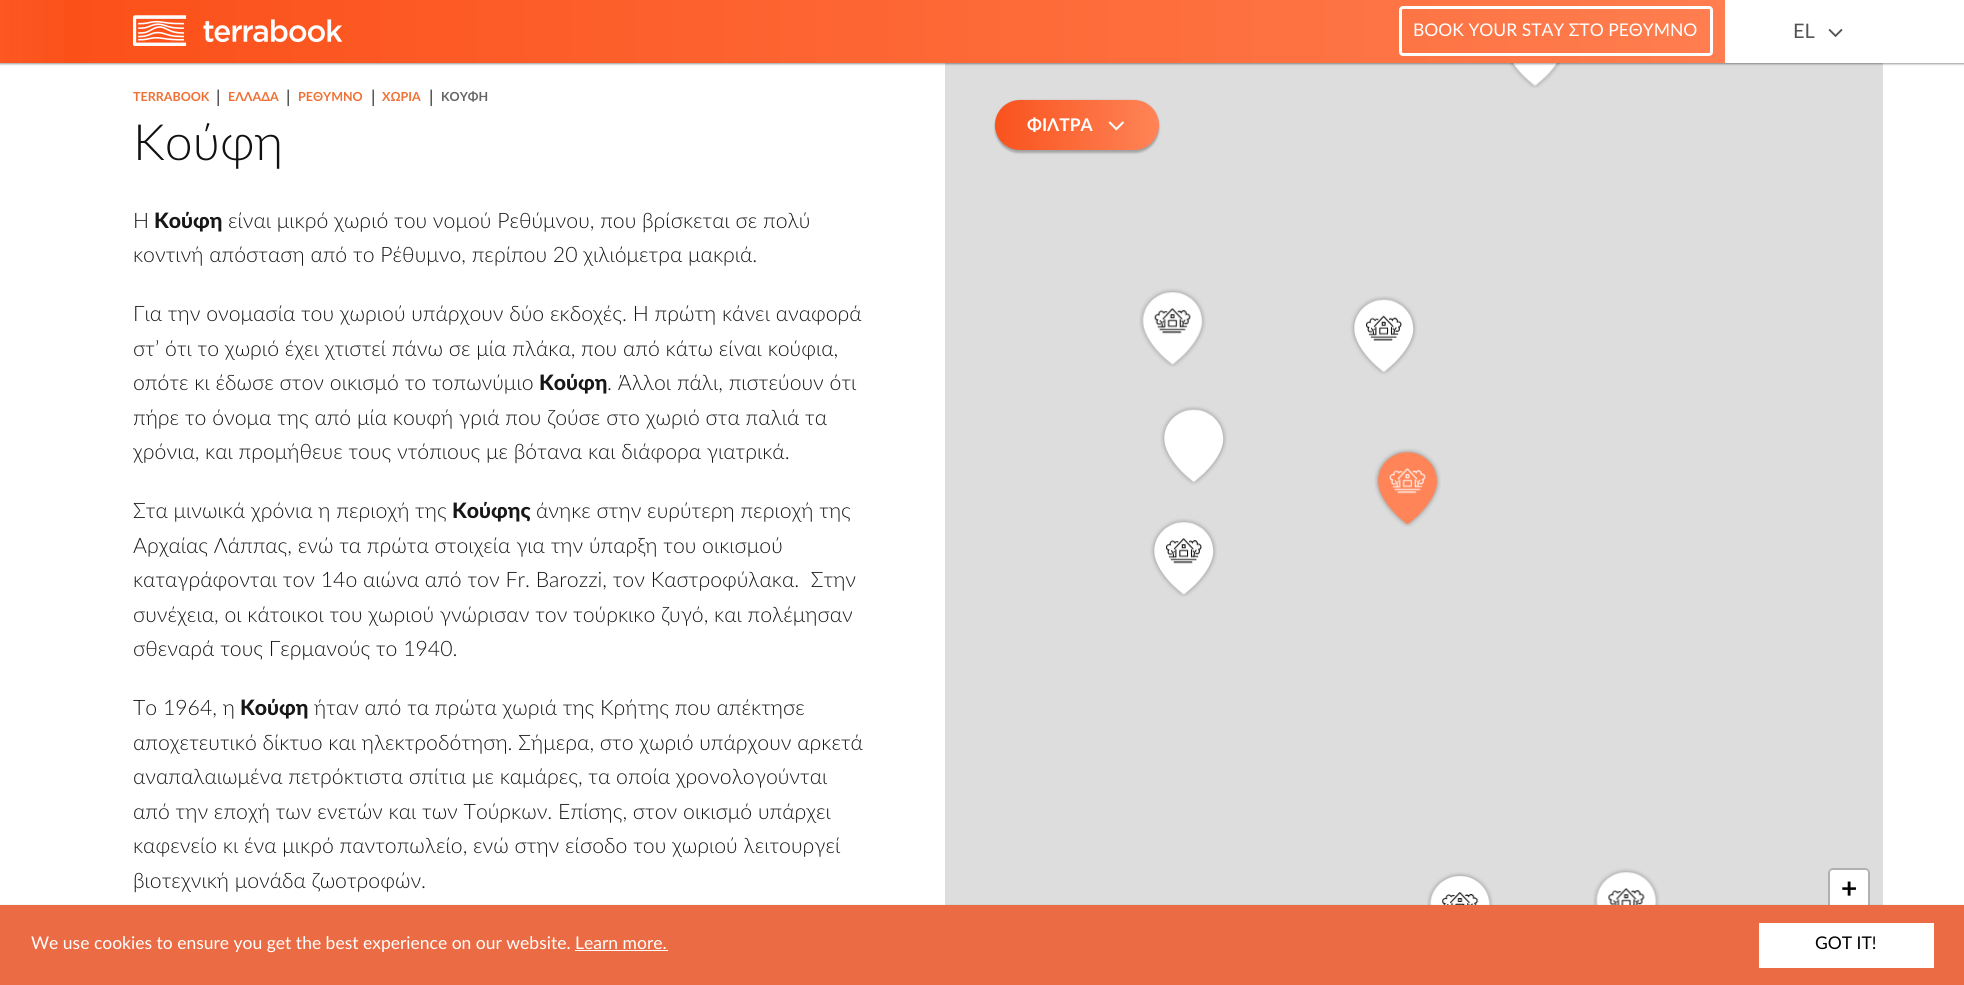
#include <cairo.h>
#include <math.h>
#include <stddef.h>

static cairo_t *c;
static void C(unsigned color){cairo_set_source_rgb(c, (color >> 16) / 255.0, (color >> 8 & 255) / 255.0, (color & 255) / 255.0);}
static void F(const char *family, double size, int italic, int bold){cairo_select_font_face(c, family, italic ? CAIRO_FONT_SLANT_ITALIC : CAIRO_FONT_SLANT_NORMAL,bold ? CAIRO_FONT_WEIGHT_BOLD : CAIRO_FONT_WEIGHT_NORMAL);cairo_set_font_size(c, size);}
static void T(double x, double y, const char *s){cairo_move_to(c, x, y);cairo_show_text(c, s);}
static void R(double x, double y, double w, double h){cairo_rectangle(c, x, y, w, h);cairo_fill(c);}
static void Q(double x, double y, double w, double h, double r){cairo_new_sub_path(c);cairo_arc(c, x + w - r, y + h - r, r, 0, M_PI / 2);cairo_arc(c, x + r, y + h - r, r, M_PI / 2, M_PI);cairo_arc(c, x + r, y + r, r, M_PI, 1.5 * M_PI);cairo_arc(c, x + w - r, y + r, r, 1.5 * M_PI, 2 * M_PI);cairo_close_path(c);}
static void S(double x, double y, double w, double h, double r, double blur, double alpha){cairo_push_group_with_content(c, CAIRO_CONTENT_ALPHA);cairo_set_operator(c, CAIRO_OPERATOR_SOURCE);for (int i = 15; i >= -15 && fmin(w, h) + blur * i / 3 > 0; i -= 2) {double e = blur * i / 6;cairo_set_source_rgba(c, 0, 0, 0, alpha * erfc((i - 1) / 8.5) / 2);Q(x - e, y - e, w + 2 * e, h + 2 * e, fmax(0, fmin(r + e + blur * .6, fmin(w, h) / 2 + e)));cairo_fill(c);}cairo_pattern_t *soft = cairo_pop_group(c);cairo_mask(c, soft);cairo_pattern_destroy(soft);}
static void I(const char *path, double x, double y, double w, double h){cairo_surface_t *image = cairo_image_surface_create_from_png(path);cairo_save(c);cairo_set_source_surface(c, image, x, y);cairo_rectangle(c, x, y, w, h);cairo_fill(c);cairo_restore(c);cairo_surface_destroy(image);}
int main(void) {
cairo_surface_t *surface = cairo_image_surface_create(CAIRO_FORMAT_RGB24, 1964, 985);
c = cairo_create(surface);
cairo_font_options_t *options = cairo_font_options_create();
cairo_font_options_set_hint_metrics(options, CAIRO_HINT_METRICS_OFF);
cairo_font_options_set_hint_style(options, CAIRO_HINT_STYLE_NONE);
cairo_set_font_options(c, options);
cairo_set_miter_limit(c, 4);
cairo_pattern_t *gradient;
C(0xffffff);
cairo_paint(c);
C(0xdddddd);
R(945,63,938,842);
I("3.png",1509,63,52,25);
C(0x000000);
S(0,1,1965,63,0,1,.4);
gradient = cairo_pattern_create_linear(0,31,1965,31);
cairo_pattern_add_color_stop_rgba(gradient,0,0.988,0.306,0.09,1);
cairo_pattern_add_color_stop_rgba(gradient,1,1,0.518,0.341,1);
cairo_set_source(c,gradient);
cairo_pattern_destroy(gradient);
R(0,0,1725,63);
gradient = cairo_pattern_create_linear(83,31,-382,31);
cairo_pattern_add_color_stop_rgba(gradient,0,1,0.518,0.341,0);
cairo_pattern_add_color_stop_rgba(gradient,1,1,0.518,0.341,1);
cairo_set_source(c,gradient);
cairo_pattern_destroy(gradient);
R(0,0,64,63);
I("1.png",133,15,210,31);
Q(1400.5,7.5,311,47,2.5);
C(0xffffff);
cairo_set_line_width(c,3);
cairo_stroke(c);
F("Lato",17.5,0,0);
T(1413,36,"BOOK YOUR STAY ΣΤΟ ΡΕΘΥΜΝΟ");
R(1725,0,239,63);
F("Lato",20,0,0);
C(0x545454);
T(1793,38,"EL");
I("2.png",1828,29,15,8);
F("Lato",12.5,0,1);
C(0xf07135);
T(133,101,"TERRABOOK");
F("Lato",17.5,0,0);
C(0x2e2e2e);
T(216,103,"|");
F("Lato",12.5,0,1);
C(0xf07135);
T(228,101,"ΕΛΛΑΔΑ");
F("Lato",17.5,0,0);
C(0x2e2e2e);
T(286,103,"|");
F("Lato",12.5,0,1);
C(0xf07135);
T(298,101,"ΡΕΘΥΜΝΟ");
F("Lato",17.5,0,0);
C(0x2e2e2e);
T(371,103,"|");
F("Lato",12.5,0,1);
C(0xf07135);
T(382,101,"ΧΩΡΙΑ");
F("Lato",17.5,0,0);
C(0x2e2e2e);
T(429,103,"|");
F("Lato",12.5,0,1);
C(0x656565);
T(441,101,"ΚΟΥΦΗ");
F("Lato Light",50,0,0);
C(0x111111);
T(133,160,"Κούφη");
F("Lato Light",21.25,0,0);
C(0x171717);
T(133,228,"Η");
F("Lato Black",21.25,0,0);
T(154,228,"Κούφη");
F("Lato Light",21.25,0,0);
T(228,228,"είναι μικρό χωριό του νομού Ρεθύμνου, που βρίσκεται σε πολύ");
T(133,262,"κοντινή απόσταση από το Ρέθυμνο, περίπου 20 χιλιόμετρα μακριά.");
T(133,321,"Για την ονομασία του χωριού υπάρχουν δύο εκδοχές. Η πρώτη κάνει αναφορά");
T(133,356,"στ’ ότι το χωριό έχει χτιστεί πάνω σε μία πλάκα, που από κάτω είναι κούφια,");
T(133,390,"οπότε κι έδωσε στον οικισμό το τοπωνύμιο");
F("Lato Black",21.25,0,0);
T(539,390,"Κούφη");
F("Lato Light",21.25,0,0);
T(607,390,". Άλλοι πάλι, πιστεύουν ότι");
T(133,425,"πήρε το όνομα της από μία κουφή γριά που ζούσε στο χωριό στα παλιά τα");
T(133,459,"χρόνια, και προμήθευε τους ντόπιους με βότανα και διάφορα γιατρικά.");
T(133,518,"Στα μινωικά χρόνια η περιοχή της");
F("Lato Black",21.25,0,0);
T(452,518,"Κούφης");
F("Lato Light",21.25,0,0);
T(536,518,"άνηκε στην ευρύτερη περιοχή της");
T(133,553,"Αρχαίας Λάππας, ενώ τα πρώτα στοιχεία για την ύπαρξη του οικισμού");
T(133,587,"καταγράφονται τον 14ο αιώνα από τον Fr. Barozzi, τον Καστροφύλακα.  Στην");
T(133,622,"συνέχεια, οι κάτοικοι του χωριού γνώρισαν τον τούρκικο ζυγό, και πολέμησαν");
T(133,656,"σθεναρά τους Γερμανούς το 1940.");
T(133,715,"Το 1964, η");
F("Lato Black",21.25,0,0);
T(240,715,"Κούφη");
F("Lato Light",21.25,0,0);
T(314,715,"ήταν από τα πρώτα χωριά της Κρήτης που απέκτησε");
T(133,750,"αποχετευτικό δίκτυο και ηλεκτροδότηση. Σήμερα, στο χωριό υπάρχουν αρκετά");
T(133,784,"αναπαλαιωμένα πετρόκτιστα σπίτια με καμάρες, τα οποία χρονολογούνται");
T(133,819,"από την εποχή των ενετών και των Τούρκων. Επίσης, στον οικισμό υπάρχει");
T(133,853,"καφενείο κι ένα μικρό παντοπωλείο, ενώ στην είσοδο του χωριού λειτουργεί");
T(133,888,"βιοτεχνική μονάδα ζωοτροφών.");
I("4.png",1139,288,67,79);
I("5.png",1350,296,67,79);
I("6.png",1160,406,67,79);
I("7.png",1374,448,67,79);
I("8.png",1150,518,67,79);
I("9.png",1427,872,66,33);
I("10.png",1593,868,67,37);
C(0x000000);
S(995,103,164,50,25,1,.24);
S(995,100,164,50,25,1,.12);
gradient = cairo_pattern_create_linear(995,125,1159,125);
cairo_pattern_add_color_stop_rgba(gradient,0,0.976,0.322,0.114,1);
cairo_pattern_add_color_stop_rgba(gradient,1,1,0.518,0.341,1);
cairo_set_source(c,gradient);
cairo_pattern_destroy(gradient);
Q(995,100,164,50,25);
cairo_fill(c);
F("Lato",17.5,0,1);
C(0xffffff);
T(1027,131,"ΦΙΛΤΡΑ");
I("11.png",1108,121,16,10);
Q(1829.5,869.5,39,77,3.5);
C(0xb1b1b1);
cairo_stroke(c);
C(0xffffff);
cairo_new_path(c);
cairo_move_to(c,1832.5,870);
cairo_line_to(c,1865.5,870);
cairo_curve_to(c,1867,870,1868,871,1868,872.5);
cairo_line_to(c,1868,908);
cairo_line_to(c,1830,908);
cairo_line_to(c,1830,872.5);
cairo_curve_to(c,1830,871,1831,870,1832.5,870);
cairo_close_path(c);
cairo_fill(c);
F("Lato",28,0,1);
C(0x000000);
T(1841,898,"+");
C(0x000000);
S(0,906,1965,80,0,1,.4);
C(0xeb6c44);
R(0,905,1964,80);
F("Lato",17.5,0,0);
C(0xffffff);
T(31,949,"We use cookies to ensure you get the best experience on our website. Learn more.");
R(575,950,93,1);
R(1759,923,175,45);
C(0x000000);
T(1815,949,"GOT IT!");
cairo_surface_write_to_png(surface, "o.png");
cairo_font_options_destroy(options);
cairo_destroy(c);
cairo_surface_destroy(surface);
return 0;
}
